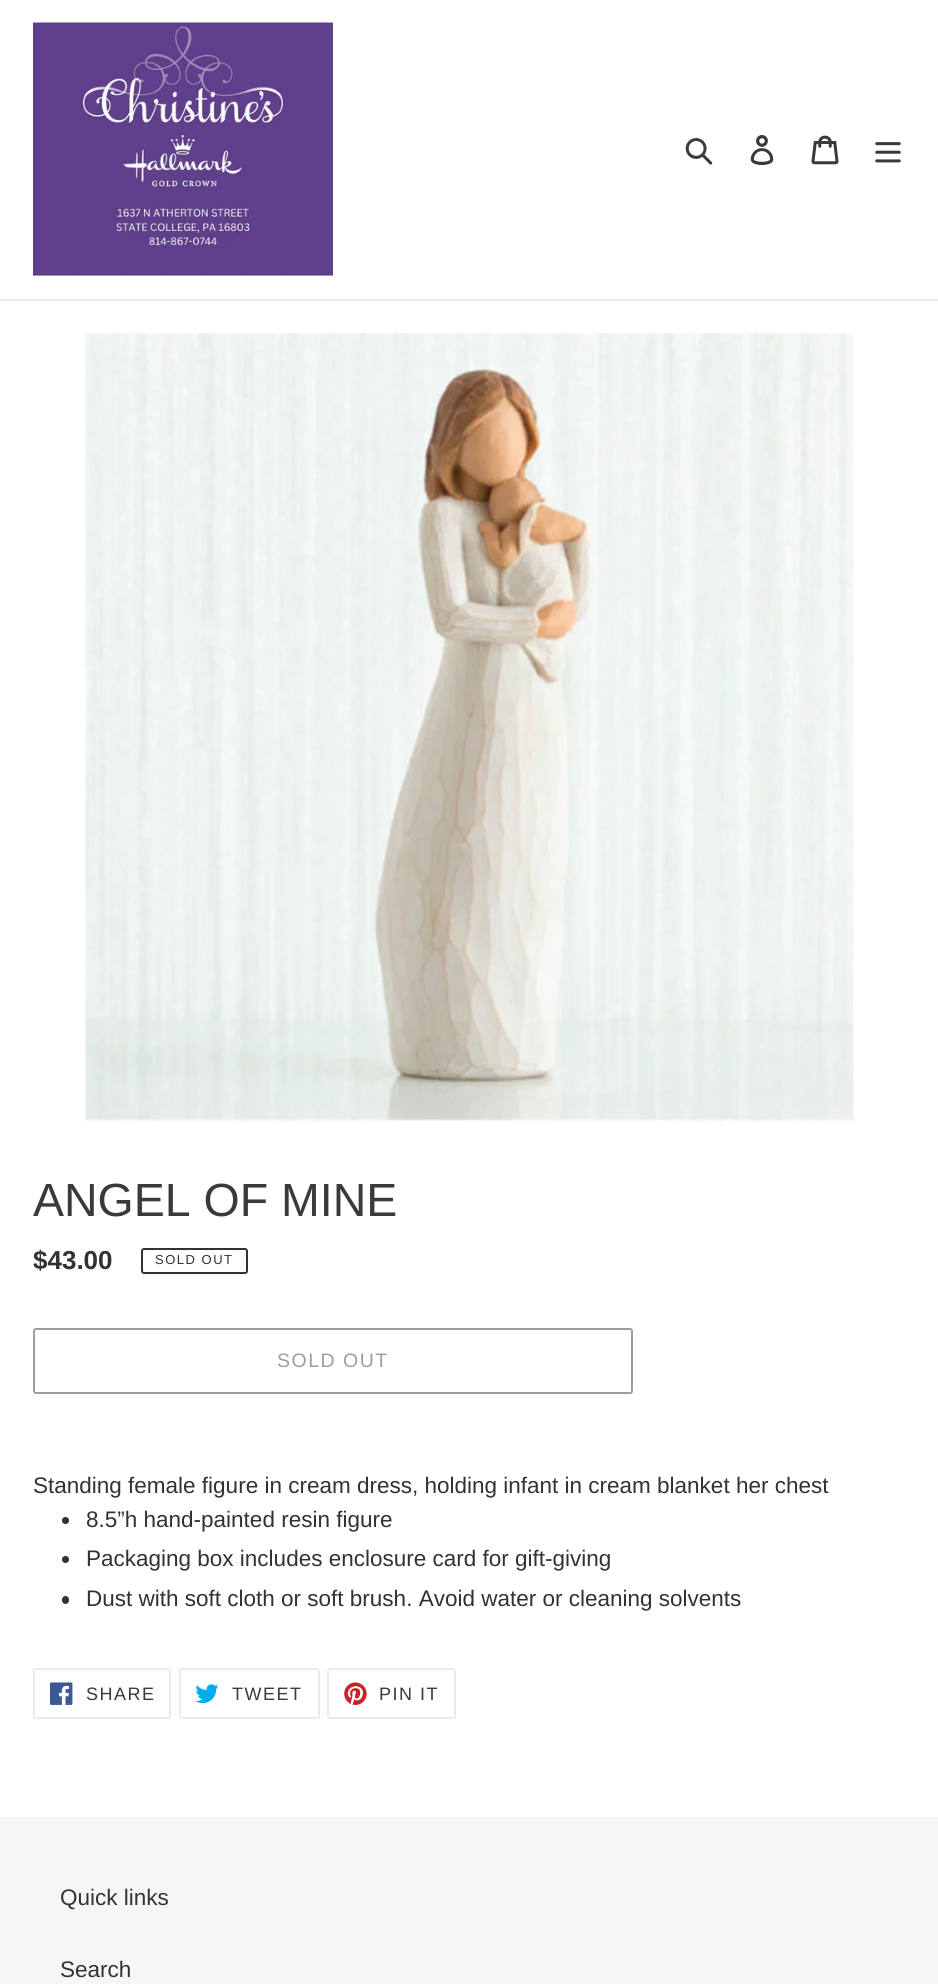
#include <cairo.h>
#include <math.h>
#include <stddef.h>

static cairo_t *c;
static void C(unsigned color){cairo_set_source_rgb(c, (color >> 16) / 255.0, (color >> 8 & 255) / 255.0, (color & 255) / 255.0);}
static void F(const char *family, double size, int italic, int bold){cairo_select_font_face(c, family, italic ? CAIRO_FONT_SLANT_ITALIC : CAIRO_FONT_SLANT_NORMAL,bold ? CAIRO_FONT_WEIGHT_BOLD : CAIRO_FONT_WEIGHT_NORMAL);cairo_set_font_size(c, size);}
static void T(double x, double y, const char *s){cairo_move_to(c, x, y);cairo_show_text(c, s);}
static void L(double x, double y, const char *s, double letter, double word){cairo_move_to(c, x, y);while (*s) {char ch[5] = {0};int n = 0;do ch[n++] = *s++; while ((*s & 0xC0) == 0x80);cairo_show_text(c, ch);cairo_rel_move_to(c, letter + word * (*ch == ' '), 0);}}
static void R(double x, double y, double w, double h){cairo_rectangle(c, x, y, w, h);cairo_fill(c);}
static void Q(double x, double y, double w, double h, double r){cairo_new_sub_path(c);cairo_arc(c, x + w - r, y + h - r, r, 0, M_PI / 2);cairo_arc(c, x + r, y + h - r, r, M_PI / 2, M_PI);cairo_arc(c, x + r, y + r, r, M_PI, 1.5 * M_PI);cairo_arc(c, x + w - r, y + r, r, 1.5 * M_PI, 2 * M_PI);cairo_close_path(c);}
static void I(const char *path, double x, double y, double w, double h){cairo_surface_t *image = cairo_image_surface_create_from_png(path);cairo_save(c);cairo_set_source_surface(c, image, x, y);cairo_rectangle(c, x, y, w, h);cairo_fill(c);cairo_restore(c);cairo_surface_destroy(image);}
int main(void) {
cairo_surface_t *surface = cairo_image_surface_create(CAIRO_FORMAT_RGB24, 938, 1984);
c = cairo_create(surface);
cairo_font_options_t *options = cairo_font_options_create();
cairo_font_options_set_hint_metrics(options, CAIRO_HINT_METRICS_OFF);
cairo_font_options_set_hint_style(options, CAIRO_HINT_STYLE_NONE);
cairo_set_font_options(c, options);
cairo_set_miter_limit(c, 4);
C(0xffffff);
cairo_paint(c);
C(0xebebeb);
R(0,299,938,2);
I("1.png",33,22,300,254);
I("2.png",685,138,28,27);
I("3.png",750,135,24,30);
I("4.png",811,135,28,30);
I("5.png",875,142,26,21);
I("6.png",85,333,769,790);
F("Liberation Sans",46.5,0,0);
C(0x3a3a3a);
T(33,1216,"ANGEL OF MINE");
F("Liberation Sans",26,0,1);
C(0x333232);
T(33,1269,"$43.00");
Q(142,1249,105,24,2);
cairo_stroke(c);
F("Liberation Sans",13,0,0);
L(155,1264,"SOLD OUT",1.5,0);
Q(34,1329,598,64,2);
C(0x9d9d9d);
cairo_stroke(c);
F("Liberation Sans",19.5,0,0);
L(277,1367,"SOLD OUT",1.5,0);
F("Liberation Sans",22.5,0,0);
C(0x333232);
T(33,1493,"Standing female figure in cream dress, holding infant in cream blanket her chest");
cairo_new_path(c);
cairo_arc(c,65.5,1520.5,3.5,0,2 * M_PI);
cairo_fill(c);
T(86,1527,"8.5”h hand-painted resin figure");
cairo_new_path(c);
cairo_arc(c,65.5,1559.5,3.5,0,2 * M_PI);
cairo_fill(c);
T(86,1566,"Packaging box includes enclosure card for gift-giving");
Q(62,1596,7,8,3.5);
cairo_fill(c);
T(86,1606,"Dust with soft cloth or soft brush. Avoid water or cleaning solvents");
Q(34,1669,136,49,2);
C(0xebebeb);
cairo_stroke(c);
I("7.png",50,1682,23,23);
F("Liberation Sans",18,0,0);
C(0x3a3a3a);
L(86,1700,"SHARE",1.5,0);
Q(180,1669,139,49,2);
C(0xebebeb);
cairo_stroke(c);
I("8.png",195,1684,24,20);
C(0x3a3a3a);
L(232,1700,"TWEET",1.5,0);
Q(328,1669,127,49,2);
C(0xebebeb);
cairo_stroke(c);
I("9.png",344,1682,23,23);
C(0x3a3a3a);
L(379,1700,"PIN IT",1.5,0);
C(0xf6f6f6);
R(0,1817,938,167);
F("Liberation Sans",22.5,0,0);
C(0x333232);
T(60,1905,"Quick links");
T(60,1977,"Search");
cairo_surface_write_to_png(surface, "o.png");
cairo_font_options_destroy(options);
cairo_destroy(c);
cairo_surface_destroy(surface);
return 0;
}
